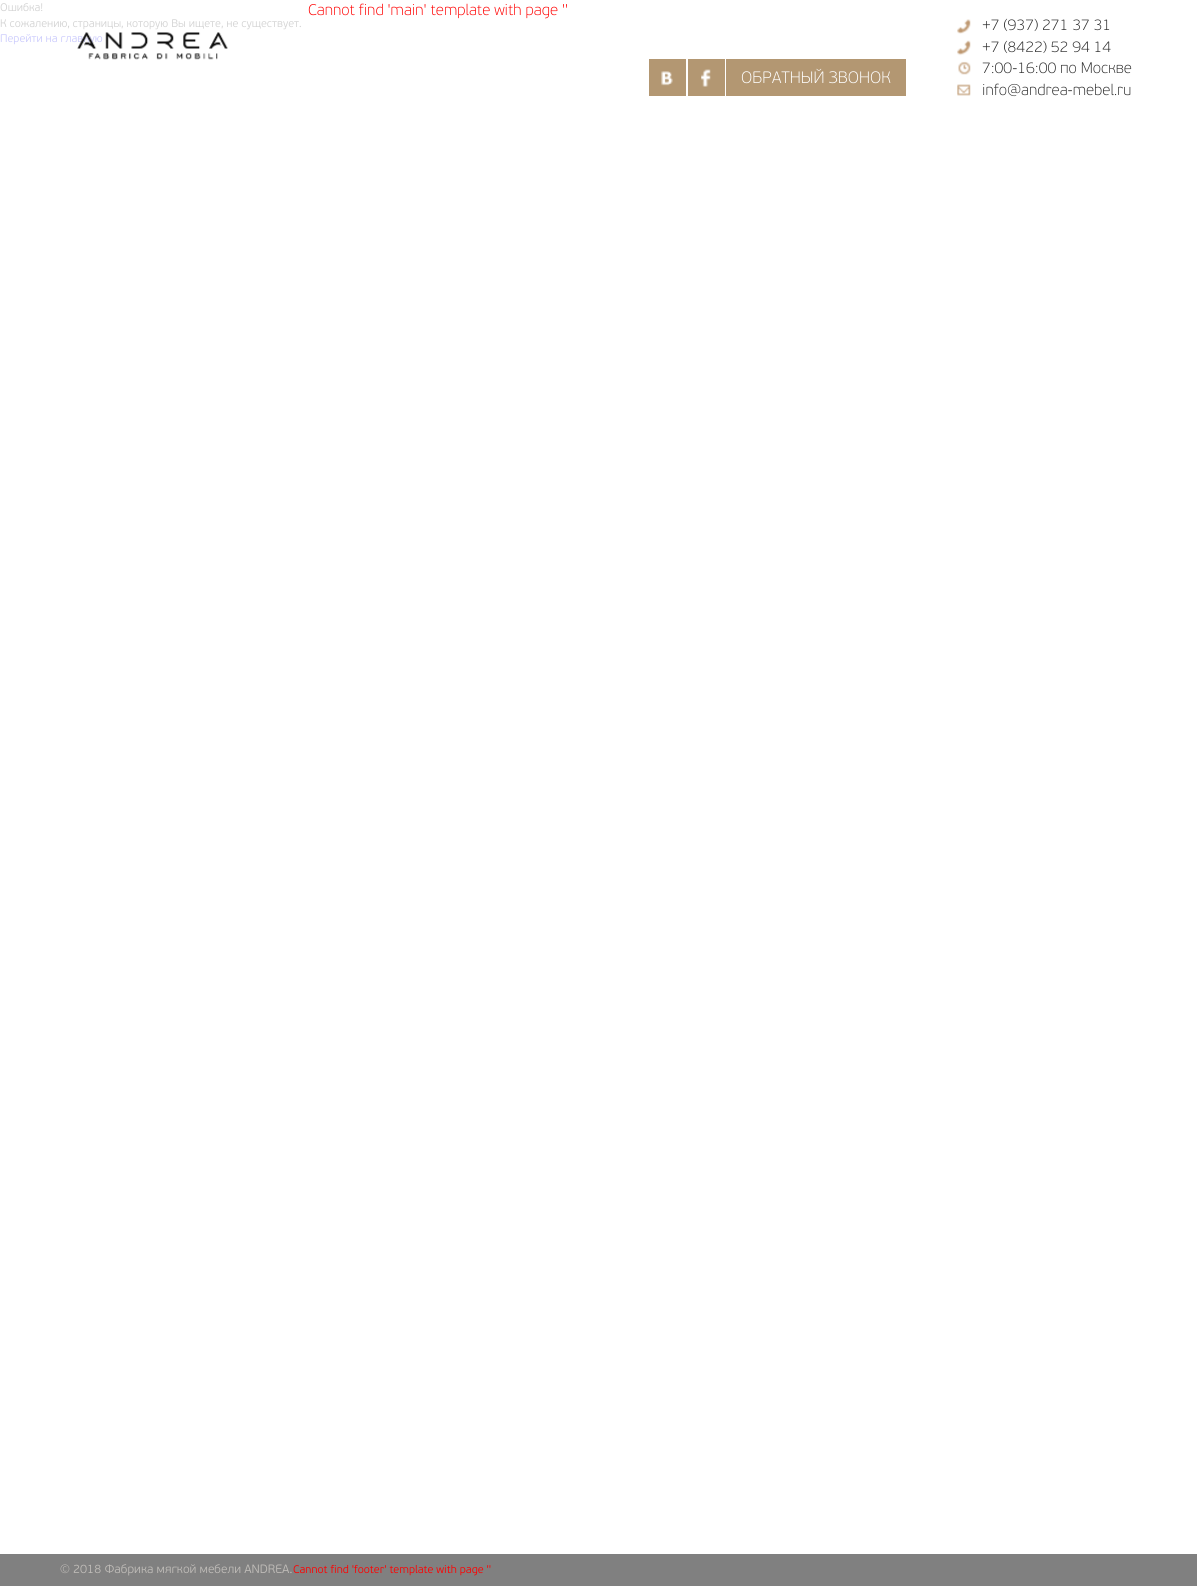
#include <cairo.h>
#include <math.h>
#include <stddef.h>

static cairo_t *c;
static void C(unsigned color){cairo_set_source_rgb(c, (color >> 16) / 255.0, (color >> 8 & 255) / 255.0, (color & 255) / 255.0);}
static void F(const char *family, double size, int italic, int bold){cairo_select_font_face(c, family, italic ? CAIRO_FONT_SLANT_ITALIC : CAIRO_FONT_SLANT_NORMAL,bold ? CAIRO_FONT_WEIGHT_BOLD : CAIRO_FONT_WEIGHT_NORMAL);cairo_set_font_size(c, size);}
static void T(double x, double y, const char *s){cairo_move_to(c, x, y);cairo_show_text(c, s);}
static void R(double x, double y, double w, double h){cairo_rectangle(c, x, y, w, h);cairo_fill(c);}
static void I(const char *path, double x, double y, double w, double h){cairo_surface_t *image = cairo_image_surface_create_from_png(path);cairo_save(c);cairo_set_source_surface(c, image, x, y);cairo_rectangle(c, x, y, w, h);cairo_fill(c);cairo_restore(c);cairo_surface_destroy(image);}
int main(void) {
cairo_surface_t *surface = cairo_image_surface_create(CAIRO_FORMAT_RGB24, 1197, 1586);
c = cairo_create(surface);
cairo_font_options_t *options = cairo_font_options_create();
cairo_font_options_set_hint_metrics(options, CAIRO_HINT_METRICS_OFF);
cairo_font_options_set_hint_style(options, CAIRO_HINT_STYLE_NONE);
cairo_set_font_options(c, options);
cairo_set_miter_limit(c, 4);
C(0xffffff);
cairo_paint(c);
F("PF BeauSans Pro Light",11,0,0);
C(0xd3d3d3);
T(0,11,"Ошибка!");
T(0,27,"К сожалению, страницы, которую Вы ищете, не существует.");
C(0xccccfc);
T(0,42,"Перейти на главную");
F("PF BeauSans Pro Thin",15.4,0,0);
C(0xff0000);
T(308,15,"Cannot find 'main' template with page ''");
I("1.png",77,32,151,28);
I("2.png",957,19,14,15);
C(0x2b2b2b);
T(982,30,"+7 (937) 271 37 31");
I("3.png",957,40,14,16);
T(982,52,"+7 (8422) 52 94 14");
I("4.png",958,61,13,14);
T(982,73,"7:00-16:00 по Москве");
I("5.png",957,84,14,12);
T(982,95,"info@andrea-mebel.ru");
C(0xb39772);
R(649,59,37,37);
I("6.png",661,71,12,15);
R(688,59,37,37);
I("7.png",701,69,10,18);
R(726,59,180,37);
F("PF BeauSans Pro Thin",16.5,0,0);
C(0xffffff);
T(741,83,"ОБРАТНЫЙ ЗВОНОК");
C(0x808080);
R(0,1554,1197,32);
F("PF BeauSans Pro Light",12.1,0,0);
C(0xbebbb7);
T(60,1573,"© 2018 Фабрика мягкой мебели ANDREA.");
F("PF BeauSans Pro Light",11,0,0);
C(0xff0000);
T(293,1573,"Cannot find 'footer' template with page ''");
cairo_surface_write_to_png(surface, "o.png");
cairo_font_options_destroy(options);
cairo_destroy(c);
cairo_surface_destroy(surface);
return 0;
}
